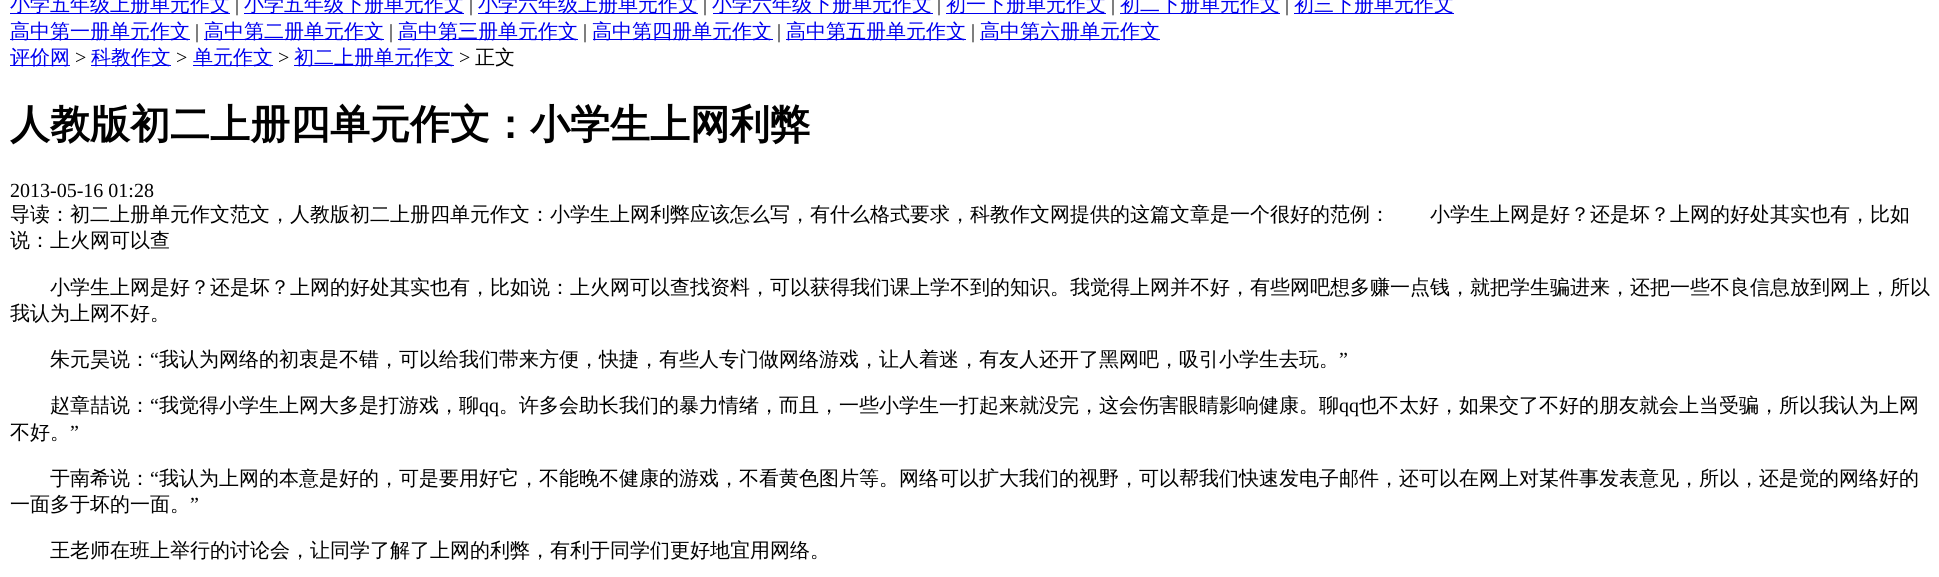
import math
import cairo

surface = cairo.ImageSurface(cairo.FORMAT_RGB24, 1939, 577)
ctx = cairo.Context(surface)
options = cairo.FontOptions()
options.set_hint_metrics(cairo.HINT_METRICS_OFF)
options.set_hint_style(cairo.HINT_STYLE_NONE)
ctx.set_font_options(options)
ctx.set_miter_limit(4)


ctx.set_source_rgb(1, 1, 1)
ctx.paint()
ctx.set_source_rgb(0, 0, 0.933)
ctx.rectangle(10, 13, 220, 1)
ctx.fill()
ctx.select_font_face("WenQuanYi Zen Hei Medium")
ctx.set_font_size(20)
ctx.move_to(10, 11)
ctx.show_text("小学五年级上册单元作文")
ctx.select_font_face("Liberation Serif")
ctx.set_source_rgb(0, 0, 0)
ctx.move_to(235, 11)
ctx.show_text("|")
ctx.set_source_rgb(0, 0, 0.933)
ctx.rectangle(244, 13, 220, 1)
ctx.fill()
ctx.select_font_face("WenQuanYi Zen Hei Medium")
ctx.move_to(244, 11)
ctx.show_text("小学五年级下册单元作文")
ctx.select_font_face("Liberation Serif")
ctx.set_source_rgb(0, 0, 0)
ctx.move_to(469, 11)
ctx.show_text("|")
ctx.set_source_rgb(0, 0, 0.933)
ctx.rectangle(478, 13, 220, 1)
ctx.fill()
ctx.select_font_face("WenQuanYi Zen Hei Medium")
ctx.move_to(478, 11)
ctx.show_text("小学六年级上册单元作文")
ctx.select_font_face("Liberation Serif")
ctx.set_source_rgb(0, 0, 0)
ctx.move_to(703, 11)
ctx.show_text("|")
ctx.set_source_rgb(0, 0, 0.933)
ctx.rectangle(713, 13, 220, 1)
ctx.fill()
ctx.select_font_face("WenQuanYi Zen Hei Medium")
ctx.move_to(712, 11)
ctx.show_text("小学六年级下册单元作文")
ctx.select_font_face("Liberation Serif")
ctx.set_source_rgb(0, 0, 0)
ctx.move_to(937, 11)
ctx.show_text("|")
ctx.set_source_rgb(0, 0, 0.933)
ctx.rectangle(946, 13, 160, 1)
ctx.fill()
ctx.select_font_face("WenQuanYi Zen Hei Medium")
ctx.move_to(946, 11)
ctx.show_text("初一下册单元作文")
ctx.select_font_face("Liberation Serif")
ctx.set_source_rgb(0, 0, 0)
ctx.move_to(1111, 11)
ctx.show_text("|")
ctx.set_source_rgb(0, 0, 0.933)
ctx.rectangle(1120, 13, 160, 1)
ctx.fill()
ctx.select_font_face("WenQuanYi Zen Hei Medium")
ctx.move_to(1120, 11)
ctx.show_text("初二下册单元作文")
ctx.select_font_face("Liberation Serif")
ctx.set_source_rgb(0, 0, 0)
ctx.move_to(1285, 11)
ctx.show_text("|")
ctx.set_source_rgb(0, 0, 0.933)
ctx.rectangle(1294, 13, 160, 1)
ctx.fill()
ctx.select_font_face("WenQuanYi Zen Hei Medium")
ctx.move_to(1294, 11)
ctx.show_text("初三下册单元作文")
ctx.rectangle(10, 39, 180, 1)
ctx.fill()
ctx.move_to(10, 38)
ctx.show_text("高中第一册单元作文")
ctx.select_font_face("Liberation Serif")
ctx.set_source_rgb(0, 0, 0)
ctx.move_to(195, 38)
ctx.show_text("|")
ctx.set_source_rgb(0, 0, 0.933)
ctx.rectangle(204, 39, 180, 1)
ctx.fill()
ctx.select_font_face("WenQuanYi Zen Hei Medium")
ctx.move_to(204, 38)
ctx.show_text("高中第二册单元作文")
ctx.select_font_face("Liberation Serif")
ctx.set_source_rgb(0, 0, 0)
ctx.move_to(389, 38)
ctx.show_text("|")
ctx.set_source_rgb(0, 0, 0.933)
ctx.rectangle(398, 39, 180, 1)
ctx.fill()
ctx.select_font_face("WenQuanYi Zen Hei Medium")
ctx.move_to(398, 38)
ctx.show_text("高中第三册单元作文")
ctx.select_font_face("Liberation Serif")
ctx.set_source_rgb(0, 0, 0)
ctx.move_to(583, 38)
ctx.show_text("|")
ctx.set_source_rgb(0, 0, 0.933)
ctx.rectangle(593, 39, 180, 1)
ctx.fill()
ctx.select_font_face("WenQuanYi Zen Hei Medium")
ctx.move_to(592, 38)
ctx.show_text("高中第四册单元作文")
ctx.select_font_face("Liberation Serif")
ctx.set_source_rgb(0, 0, 0)
ctx.move_to(777, 38)
ctx.show_text("|")
ctx.set_source_rgb(0, 0, 0.933)
ctx.rectangle(786, 39, 180, 1)
ctx.fill()
ctx.select_font_face("WenQuanYi Zen Hei Medium")
ctx.move_to(786, 38)
ctx.show_text("高中第五册单元作文")
ctx.select_font_face("Liberation Serif")
ctx.set_source_rgb(0, 0, 0)
ctx.move_to(971, 38)
ctx.show_text("|")
ctx.set_source_rgb(0, 0, 0.933)
ctx.rectangle(980, 39, 180, 1)
ctx.fill()
ctx.select_font_face("WenQuanYi Zen Hei Medium")
ctx.move_to(980, 38)
ctx.show_text("高中第六册单元作文")
ctx.rectangle(10, 65, 60, 1)
ctx.fill()
ctx.move_to(10, 64)
ctx.show_text("评价网")
ctx.select_font_face("Liberation Serif")
ctx.set_source_rgb(0, 0, 0)
ctx.move_to(75, 64)
ctx.show_text(">")
ctx.set_source_rgb(0, 0, 0.933)
ctx.rectangle(91, 65, 80, 1)
ctx.fill()
ctx.select_font_face("WenQuanYi Zen Hei Medium")
ctx.move_to(91, 64)
ctx.show_text("科教作文")
ctx.select_font_face("Liberation Serif")
ctx.set_source_rgb(0, 0, 0)
ctx.move_to(176, 64)
ctx.show_text(">")
ctx.set_source_rgb(0, 0, 0.933)
ctx.rectangle(193, 65, 80, 1)
ctx.fill()
ctx.select_font_face("WenQuanYi Zen Hei Medium")
ctx.move_to(193, 64)
ctx.show_text("单元作文")
ctx.select_font_face("Liberation Serif")
ctx.set_source_rgb(0, 0, 0)
ctx.move_to(278, 64)
ctx.show_text(">")
ctx.set_source_rgb(0, 0, 0.933)
ctx.rectangle(294, 65, 160, 1)
ctx.fill()
ctx.select_font_face("WenQuanYi Zen Hei Medium")
ctx.move_to(294, 64)
ctx.show_text("初二上册单元作文")
ctx.select_font_face("Liberation Serif")
ctx.set_source_rgb(0, 0, 0)
ctx.move_to(459, 64)
ctx.show_text(">")
ctx.select_font_face("WenQuanYi Zen Hei Medium")
ctx.move_to(475, 64)
ctx.show_text("正文")
ctx.select_font_face("WenQuanYi Zen Hei", cairo.FONT_SLANT_NORMAL, cairo.FONT_WEIGHT_BOLD)
ctx.set_font_size(40)
ctx.move_to(10, 138)
ctx.show_text("人教版初二上册四单元作文：小学生上网利弊")
ctx.select_font_face("Liberation Serif")
ctx.set_font_size(20)
ctx.move_to(10, 197)
ctx.show_text("2013-05-16 01:28")
ctx.select_font_face("WenQuanYi Zen Hei Medium")
ctx.move_to(10, 221)
ctx.show_text("导读：初二上册单元作文范文，人教版初二上册四单元作文：小学生上网利弊应该怎么写，有什么格式要求，科教作文网提供的这篇文章是一个很好的范例：　　小学生上网是好？还是坏？上网的好处其实也有，比如")
ctx.move_to(10, 247)
ctx.show_text("说：上火网可以查")
ctx.move_to(50, 294)
ctx.show_text("小学生上网是好？还是坏？上网的好处其实也有，比如说：上火网可以查找资料，可以获得我们课上学不到的知识。我觉得上网并不好，有些网吧想多赚一点钱，就把学生骗进来，还把一些不良信息放到网上，所以")
ctx.move_to(10, 320)
ctx.show_text("我认为上网不好。")
ctx.move_to(50, 366)
ctx.show_text("朱元昊说：")
ctx.select_font_face("Liberation Serif")
ctx.move_to(150, 366)
ctx.show_text("“")
ctx.select_font_face("WenQuanYi Zen Hei Medium")
ctx.move_to(159, 366)
ctx.show_text("我认为网络的初衷是不错，可以给我们带来方便，快捷，有些人专门做网络游戏，让人着迷，有友人还开了黑网吧，吸引小学生去玩。")
ctx.select_font_face("Liberation Serif")
ctx.move_to(1339, 366)
ctx.show_text("”")
ctx.select_font_face("WenQuanYi Zen Hei Medium")
ctx.move_to(50, 412)
ctx.show_text("赵章喆说：")
ctx.select_font_face("Liberation Serif")
ctx.move_to(150, 412)
ctx.show_text("“")
ctx.select_font_face("WenQuanYi Zen Hei Medium")
ctx.move_to(159, 412)
ctx.show_text("我觉得小学生上网大多是打游戏，聊")
ctx.move_to(499, 412)
ctx.show_text("。许多会助长我们的暴力情绪，而且，一些小学生一打起来就没完，这会伤害眼睛影响健康。聊")
ctx.move_to(1359, 412)
ctx.show_text("也不太好，如果交了不好的朋友就会上当受骗，所以我认为上网")
ctx.select_font_face("Liberation Serif")
ctx.move_to(479, 412)
ctx.show_text("qq")
ctx.move_to(1339, 412)
ctx.show_text("qq")
ctx.select_font_face("WenQuanYi Zen Hei Medium")
ctx.move_to(10, 439)
ctx.show_text("不好。")
ctx.select_font_face("Liberation Serif")
ctx.move_to(70, 439)
ctx.show_text("”")
ctx.select_font_face("WenQuanYi Zen Hei Medium")
ctx.move_to(50, 485)
ctx.show_text("于南希说：")
ctx.select_font_face("Liberation Serif")
ctx.move_to(150, 485)
ctx.show_text("“")
ctx.select_font_face("WenQuanYi Zen Hei Medium")
ctx.move_to(159, 485)
ctx.show_text("我认为上网的本意是好的，可是要用好它，不能晚不健康的游戏，不看黄色图片等。网络可以扩大我们的视野，可以帮我们快速发电子邮件，还可以在网上对某件事发表意见，所以，还是觉的网络好的")
ctx.move_to(10, 511)
ctx.show_text("一面多于坏的一面。")
ctx.select_font_face("Liberation Serif")
ctx.move_to(190, 511)
ctx.show_text("”")
ctx.select_font_face("WenQuanYi Zen Hei Medium")
ctx.move_to(50, 557)
ctx.show_text("王老师在班上举行的讨论会，让同学了解了上网的利弊，有利于同学们更好地宜用网络。")
surface.write_to_png("page.png")
